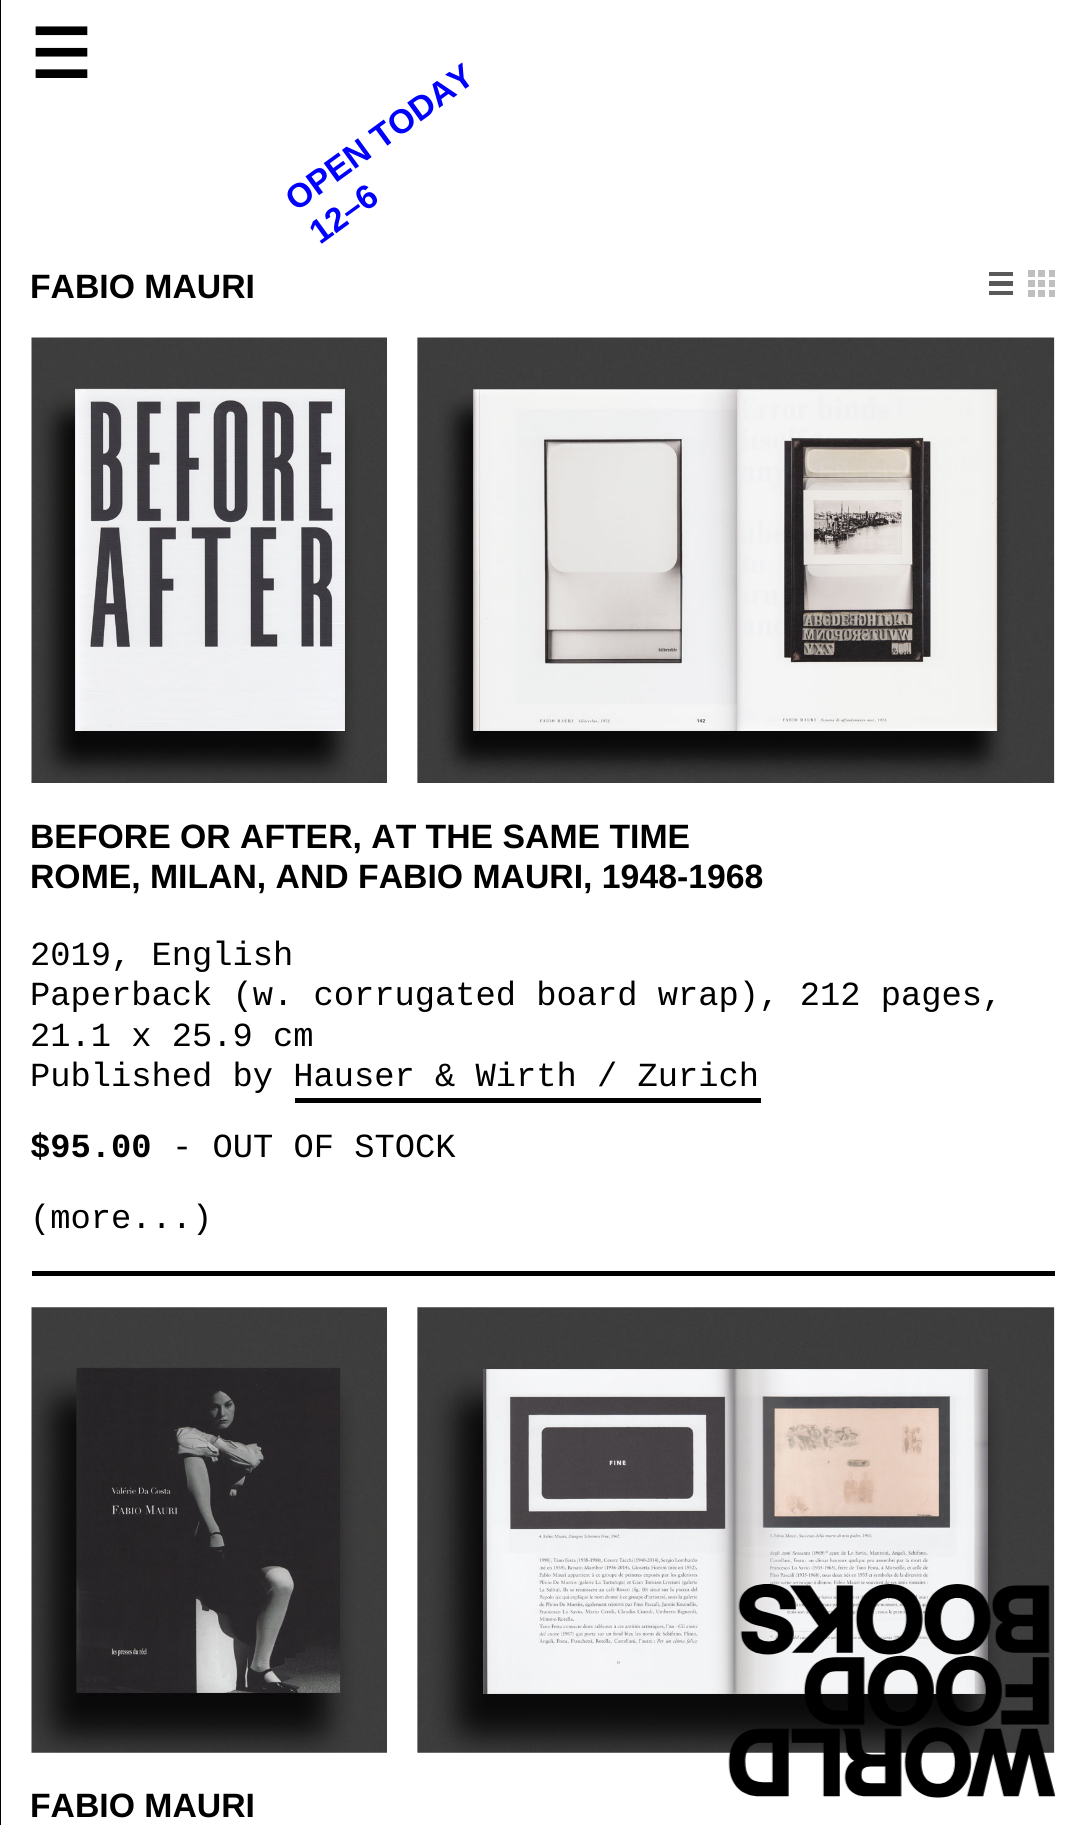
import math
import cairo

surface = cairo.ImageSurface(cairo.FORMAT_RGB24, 1084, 1825)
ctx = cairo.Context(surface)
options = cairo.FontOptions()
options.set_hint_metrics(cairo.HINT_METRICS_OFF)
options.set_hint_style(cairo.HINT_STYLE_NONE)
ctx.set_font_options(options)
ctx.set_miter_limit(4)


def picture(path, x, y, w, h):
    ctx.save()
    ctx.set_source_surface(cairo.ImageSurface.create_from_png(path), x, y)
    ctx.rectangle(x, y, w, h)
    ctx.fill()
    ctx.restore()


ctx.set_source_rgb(1, 1, 1)
ctx.paint()
ctx.set_source_rgb(0, 0, 0)
ctx.rectangle(0, 0, 1, 1825)
ctx.fill()
ctx.select_font_face("DejaVu Sans", cairo.FONT_SLANT_NORMAL, cairo.FONT_WEIGHT_BOLD)
ctx.set_font_size(68)
ctx.move_to(30, 78)
ctx.show_text("☰")
ctx.select_font_face("Liberation Sans", cairo.FONT_SLANT_NORMAL, cairo.FONT_WEIGHT_BOLD)
ctx.set_font_size(33.75)
ctx.set_source_rgb(0, 0, 1)
ctx.save()
ctx.translate(296, 212)
ctx.rotate(-36 * math.pi / 180)
ctx.move_to(0, 0)
ctx.show_text("OPEN TODAY")
ctx.restore()
ctx.save()
ctx.translate(320, 245)
ctx.rotate(-36 * math.pi / 180)
ctx.move_to(0, 0)
ctx.show_text("12–6")
ctx.restore()
ctx.set_source_rgb(0, 0, 0)
ctx.move_to(30, 298)
ctx.show_text("FABIO MAURI")
ctx.set_source_rgb(0.349, 0.349, 0.349)
ctx.rectangle(989, 272, 24, 4)
ctx.fill()
ctx.rectangle(989, 281, 24, 5)
ctx.fill()
ctx.rectangle(989, 291, 24, 4)
ctx.fill()
picture("img1.png", 1028, 270, 27, 27)
picture("img2.png", 31, 337, 356, 446)
picture("img3.png", 417, 337, 638, 446)
ctx.set_source_rgb(0, 0, 0)
ctx.move_to(30, 848)
ctx.show_text("BEFORE OR AFTER, AT THE SAME TIME")
ctx.move_to(30, 888)
ctx.show_text("ROME, MILAN, AND FABIO MAURI, 1948-1968")
ctx.select_font_face("Liberation Mono")
ctx.move_to(30, 965)
ctx.show_text("2019, English")
ctx.move_to(30, 1005)
ctx.show_text("Paperback (w. corrugated board wrap), 212 pages,")
ctx.move_to(30, 1046)
ctx.show_text("21.1 x 25.9 cm")
ctx.move_to(30, 1086)
ctx.show_text("Published by Hauser & Wirth / Zurich")
ctx.rectangle(295, 1098, 466, 5)
ctx.fill()
ctx.select_font_face("Liberation Mono", cairo.FONT_SLANT_NORMAL, cairo.FONT_WEIGHT_BOLD)
ctx.move_to(30, 1157)
ctx.show_text("$95.00")
ctx.select_font_face("Liberation Mono")
ctx.move_to(172, 1157)
ctx.show_text("- OUT OF STOCK")
ctx.move_to(30, 1228)
ctx.show_text("(more...)")
ctx.rectangle(32, 1271, 1023, 5)
ctx.fill()
picture("img4.png", 31, 1307, 356, 446)
picture("img5.png", 417, 1307, 638, 446)
ctx.select_font_face("Liberation Sans", cairo.FONT_SLANT_NORMAL, cairo.FONT_WEIGHT_BOLD)
ctx.move_to(30, 1817)
ctx.show_text("FABIO MAURI")
picture("img6.png", 728, 1584, 328, 214)
surface.write_to_png("page.png")
